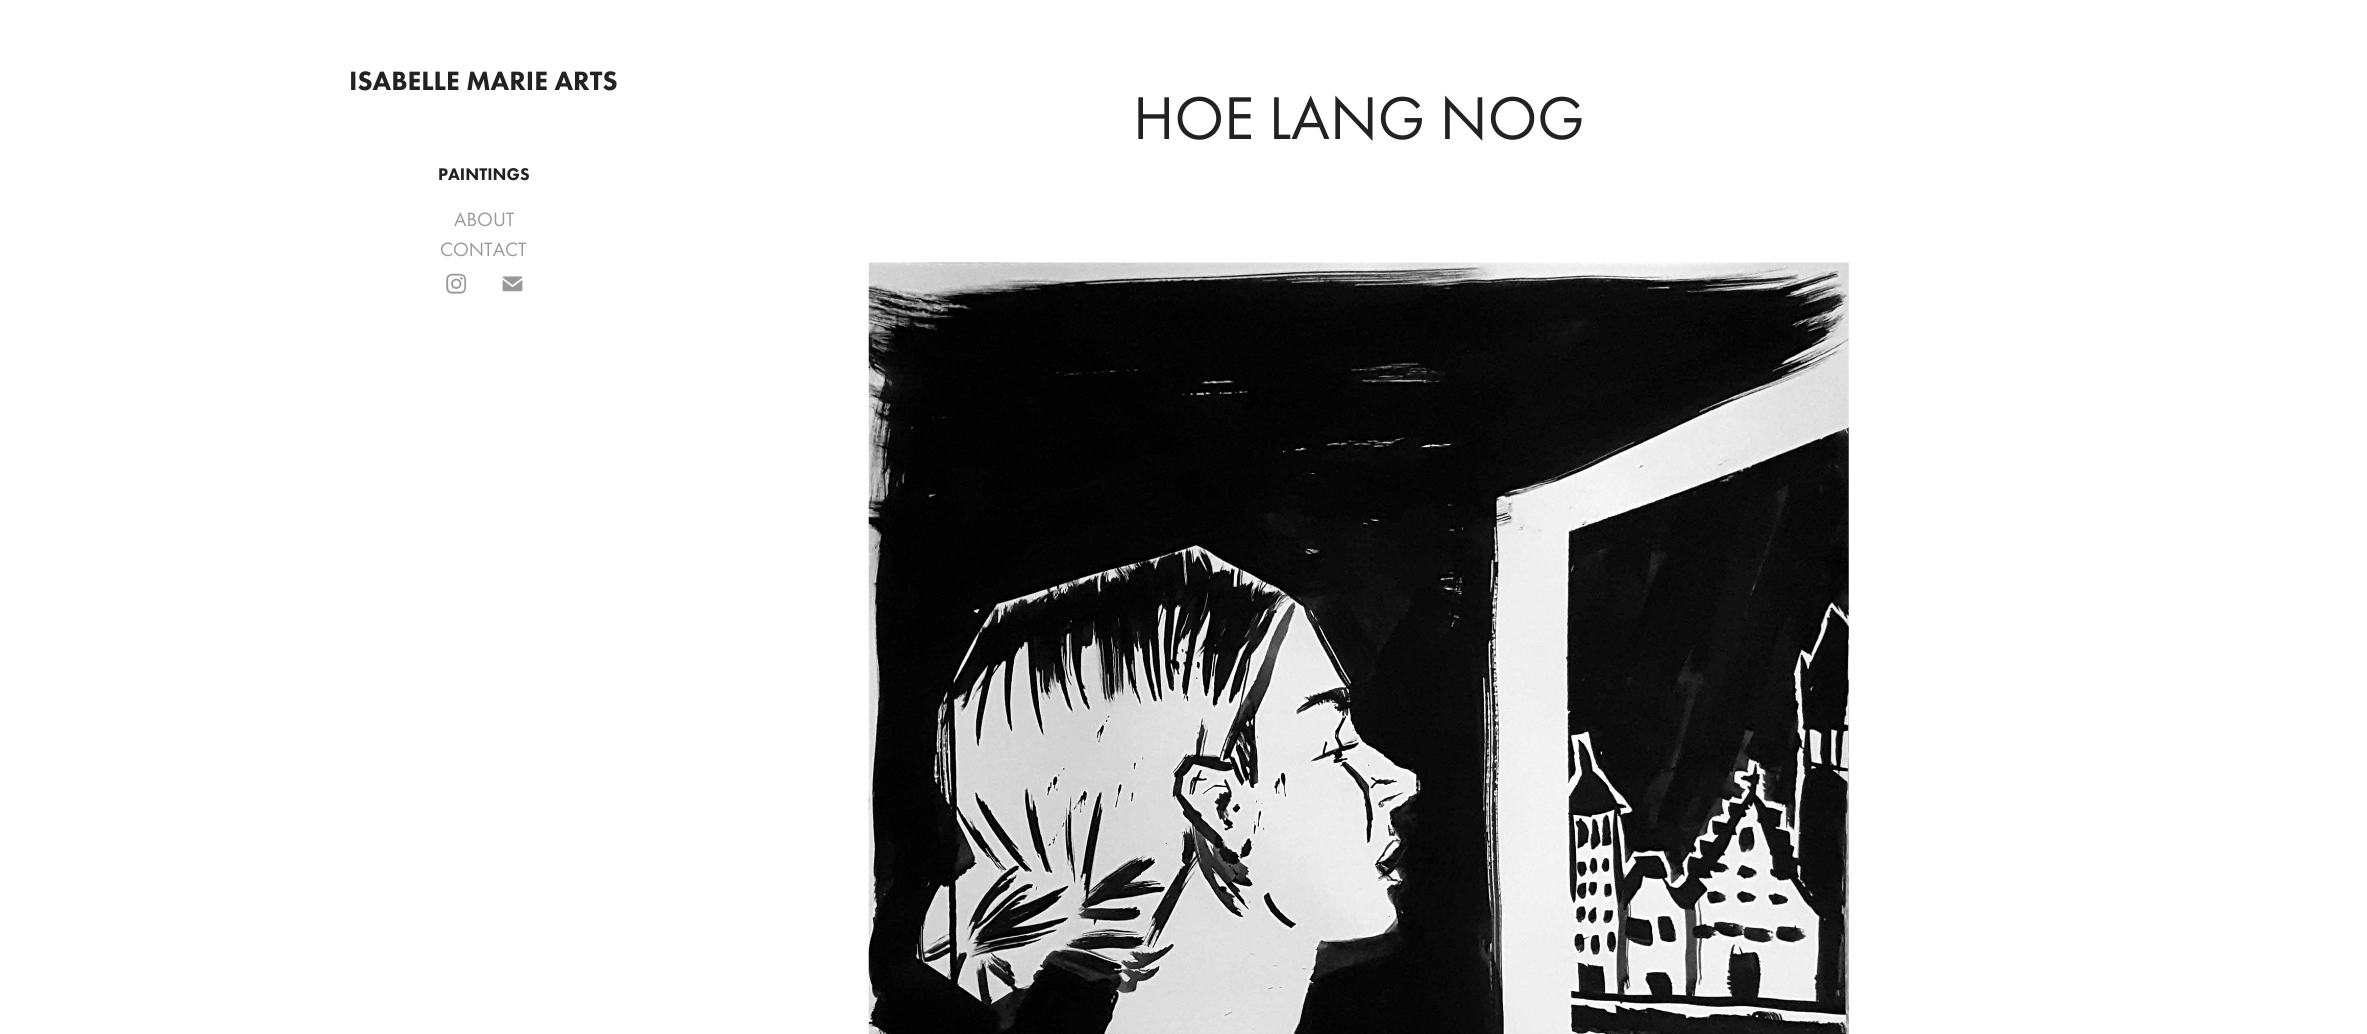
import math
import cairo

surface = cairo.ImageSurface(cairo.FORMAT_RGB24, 2367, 1034)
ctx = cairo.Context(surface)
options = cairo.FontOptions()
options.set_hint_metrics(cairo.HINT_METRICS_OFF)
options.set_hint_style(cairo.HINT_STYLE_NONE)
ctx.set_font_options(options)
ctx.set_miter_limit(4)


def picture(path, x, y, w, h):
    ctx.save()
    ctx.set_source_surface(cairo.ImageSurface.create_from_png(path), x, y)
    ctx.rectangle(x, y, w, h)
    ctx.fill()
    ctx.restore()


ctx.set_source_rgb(1, 1, 1)
ctx.paint()
ctx.select_font_face("Futura PT Black")
ctx.set_font_size(27.5)
ctx.set_source_rgb(0.133, 0.133, 0.133)
ctx.move_to(349, 90)
ctx.show_text("ISABELLE MARIE ARTS")
ctx.set_font_size(17.5)
ctx.move_to(438, 180)
ctx.show_text("PAINTINGS")
ctx.select_font_face("Futura PT")
ctx.set_font_size(20)
ctx.set_source_rgb(0.6, 0.6, 0.6)
ctx.move_to(454, 226)
ctx.show_text("ABOUT")
ctx.move_to(440, 256)
ctx.show_text("CONTACT")
picture("img1.png", 446, 273, 20, 21)
picture("img2.png", 502, 276, 21, 16)
ctx.set_font_size(62.5)
ctx.set_source_rgb(0.133, 0.133, 0.133)
ctx.move_to(1133, 139)
ctx.show_text("HOE LANG NOG")
picture("img3.png", 868, 262, 981, 772)
surface.write_to_png("page.png")
